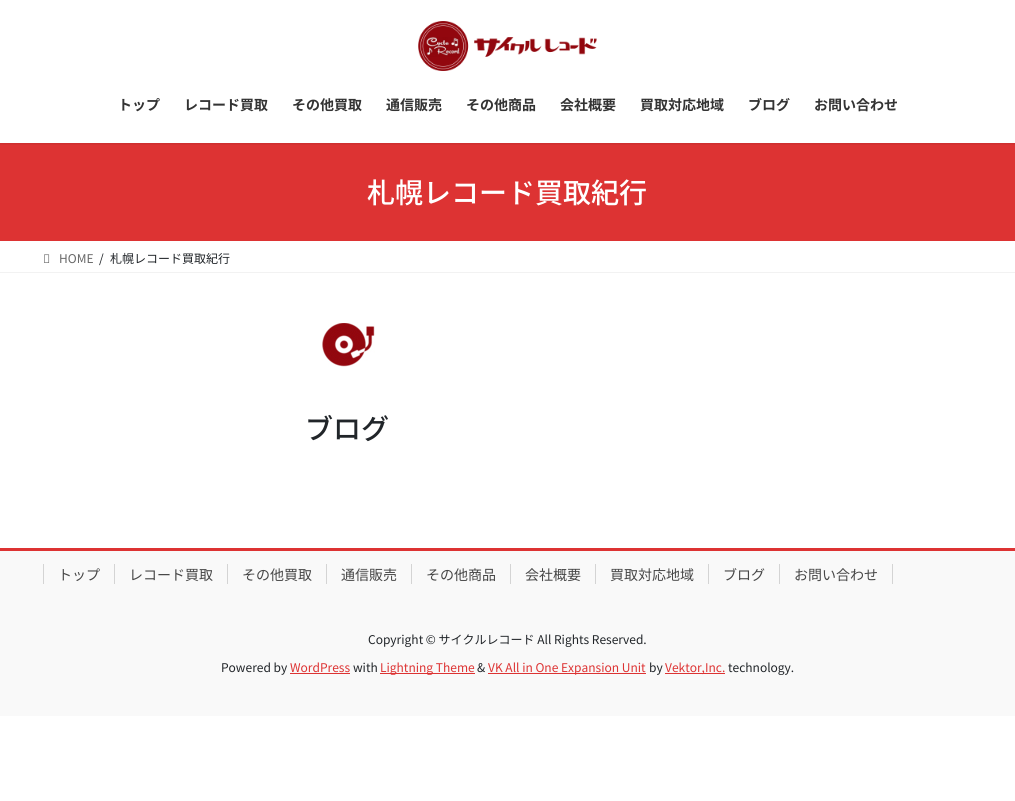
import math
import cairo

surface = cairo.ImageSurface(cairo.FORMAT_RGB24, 1015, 801)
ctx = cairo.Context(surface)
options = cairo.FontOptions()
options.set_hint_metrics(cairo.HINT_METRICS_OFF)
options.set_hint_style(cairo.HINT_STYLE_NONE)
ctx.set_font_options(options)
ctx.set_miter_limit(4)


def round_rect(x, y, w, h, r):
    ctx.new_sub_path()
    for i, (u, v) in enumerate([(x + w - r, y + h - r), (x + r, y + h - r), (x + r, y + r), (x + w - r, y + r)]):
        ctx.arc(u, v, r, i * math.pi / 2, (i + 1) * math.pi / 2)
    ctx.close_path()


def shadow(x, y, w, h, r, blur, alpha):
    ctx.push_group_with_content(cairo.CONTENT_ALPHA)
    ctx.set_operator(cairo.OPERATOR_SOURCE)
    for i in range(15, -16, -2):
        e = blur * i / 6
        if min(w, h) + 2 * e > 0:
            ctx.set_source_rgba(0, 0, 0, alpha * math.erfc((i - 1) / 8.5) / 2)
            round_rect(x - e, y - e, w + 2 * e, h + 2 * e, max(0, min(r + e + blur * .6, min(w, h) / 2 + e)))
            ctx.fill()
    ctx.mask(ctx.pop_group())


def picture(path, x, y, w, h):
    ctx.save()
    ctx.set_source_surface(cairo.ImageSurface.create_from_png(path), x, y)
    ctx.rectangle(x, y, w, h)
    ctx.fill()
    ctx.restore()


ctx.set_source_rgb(1, 1, 1)
ctx.paint()
ctx.set_source_rgb(0.867, 0.2, 0.2)
ctx.rectangle(0, 143, 1015, 98)
ctx.fill()
ctx.save()
ctx.rectangle(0, 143, 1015, 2)
ctx.clip()
ctx.set_source_rgb(0, 0, 0)
shadow(0, 1, 1015, 143, 0, 1.5, 0.1)
ctx.restore()
picture("img1.png", 418, 21, 179, 50)
ctx.select_font_face("Noto Sans JP", cairo.FONT_SLANT_NORMAL, cairo.FONT_WEIGHT_BOLD)
ctx.set_font_size(14)
ctx.set_source_rgb(0.2, 0.2, 0.2)
ctx.move_to(118, 110)
ctx.show_text("トップ")
ctx.move_to(184, 110)
ctx.show_text("レコード買取")
ctx.move_to(292, 110)
ctx.show_text("その他買取")
ctx.move_to(386, 110)
ctx.show_text("通信販売")
ctx.move_to(466, 110)
ctx.show_text("その他商品")
ctx.move_to(560, 110)
ctx.show_text("会社概要")
ctx.move_to(640, 110)
ctx.show_text("買取対応地域")
ctx.move_to(748, 110)
ctx.show_text("ブログ")
ctx.move_to(814, 110)
ctx.show_text("お問い合わせ")
ctx.select_font_face("Noto Sans JP Medium")
ctx.set_font_size(28)
ctx.set_source_rgb(1, 1, 1)
ctx.move_to(367, 203)
ctx.show_text("札幌レコード買取紀行")
ctx.set_source_rgb(0.949, 0.949, 0.949)
ctx.rectangle(0, 272, 1015, 1)
ctx.fill()
picture("img2.png", 44, 254, 6, 9)
ctx.select_font_face("Noto Sans JP")
ctx.set_font_size(12)
ctx.set_source_rgb(0.4, 0.4, 0.4)
ctx.move_to(59, 263)
ctx.show_text("HOME")
ctx.set_source_rgb(0.129, 0.145, 0.161)
ctx.move_to(99, 263)
ctx.show_text("/")
ctx.move_to(110, 263)
ctx.show_text("札幌レコード買取紀行")
picture("img3.png", 322, 322, 53, 45)
ctx.select_font_face("Noto Sans JP Medium")
ctx.set_font_size(28)
ctx.move_to(305, 439)
ctx.show_text("ブログ")
ctx.set_source_rgb(0.976, 0.976, 0.976)
ctx.rectangle(0, 551, 1015, 165)
ctx.fill()
ctx.set_source_rgb(0.867, 0.2, 0.2)
ctx.rectangle(0, 548, 1015, 3)
ctx.fill()
ctx.select_font_face("Noto Sans JP")
ctx.set_font_size(14)
ctx.set_source_rgb(0.275, 0.275, 0.275)
ctx.move_to(58, 580)
ctx.show_text("トップ")
ctx.set_source_rgb(0.831, 0.831, 0.831)
ctx.rectangle(43, 564, 1, 20)
ctx.fill()
ctx.set_source_rgb(0.275, 0.275, 0.275)
ctx.move_to(129, 580)
ctx.show_text("レコード買取")
ctx.set_source_rgb(0.831, 0.831, 0.831)
ctx.rectangle(114, 564, 1, 20)
ctx.fill()
ctx.set_source_rgb(0.275, 0.275, 0.275)
ctx.move_to(242, 580)
ctx.show_text("その他買取")
ctx.set_source_rgb(0.831, 0.831, 0.831)
ctx.rectangle(227, 564, 1, 20)
ctx.fill()
ctx.set_source_rgb(0.275, 0.275, 0.275)
ctx.move_to(341, 580)
ctx.show_text("通信販売")
ctx.set_source_rgb(0.831, 0.831, 0.831)
ctx.rectangle(326, 564, 1, 20)
ctx.fill()
ctx.set_source_rgb(0.275, 0.275, 0.275)
ctx.move_to(426, 580)
ctx.show_text("その他商品")
ctx.set_source_rgb(0.831, 0.831, 0.831)
ctx.rectangle(411, 564, 1, 20)
ctx.fill()
ctx.set_source_rgb(0.275, 0.275, 0.275)
ctx.move_to(525, 580)
ctx.show_text("会社概要")
ctx.set_source_rgb(0.831, 0.831, 0.831)
ctx.rectangle(510, 564, 1, 20)
ctx.fill()
ctx.set_source_rgb(0.275, 0.275, 0.275)
ctx.move_to(610, 580)
ctx.show_text("買取対応地域")
ctx.set_source_rgb(0.831, 0.831, 0.831)
ctx.rectangle(595, 564, 1, 20)
ctx.fill()
ctx.set_source_rgb(0.275, 0.275, 0.275)
ctx.move_to(723, 580)
ctx.show_text("ブログ")
ctx.set_source_rgb(0.831, 0.831, 0.831)
ctx.rectangle(708, 564, 1, 20)
ctx.fill()
ctx.set_source_rgb(0.275, 0.275, 0.275)
ctx.move_to(794, 580)
ctx.show_text("お問い合わせ")
ctx.set_source_rgb(0.831, 0.831, 0.831)
ctx.rectangle(892, 564, 1, 20)
ctx.fill()
ctx.rectangle(779, 564, 1, 20)
ctx.fill()
ctx.set_font_size(12)
ctx.set_source_rgb(0.129, 0.145, 0.161)
ctx.move_to(368, 644)
ctx.show_text("Copyright © サイクルレコード All Rights Reserved.")
ctx.move_to(221, 672)
ctx.show_text("Powered by")
ctx.set_source_rgb(0.867, 0.2, 0.2)
ctx.move_to(290, 672)
ctx.show_text("WordPress")
ctx.rectangle(290, 673, 60, 1)
ctx.fill()
ctx.set_source_rgb(0.129, 0.145, 0.161)
ctx.move_to(353, 672)
ctx.show_text("with")
ctx.set_source_rgb(0.867, 0.2, 0.2)
ctx.rectangle(380, 673, 95, 1)
ctx.fill()
ctx.move_to(380, 672)
ctx.show_text("Lightning Theme")
ctx.set_source_rgb(0.129, 0.145, 0.161)
ctx.move_to(477, 672)
ctx.show_text("&")
ctx.set_source_rgb(0.867, 0.2, 0.2)
ctx.rectangle(488, 673, 158, 1)
ctx.fill()
ctx.move_to(488, 672)
ctx.show_text("VK All in One Expansion Unit")
ctx.set_source_rgb(0.129, 0.145, 0.161)
ctx.move_to(649, 672)
ctx.show_text("by")
ctx.set_source_rgb(0.867, 0.2, 0.2)
ctx.rectangle(665, 673, 60, 1)
ctx.fill()
ctx.move_to(665, 672)
ctx.show_text("Vektor,Inc.")
ctx.set_source_rgb(0.129, 0.145, 0.161)
ctx.move_to(728, 672)
ctx.show_text("technology.")
surface.write_to_png("page.png")
